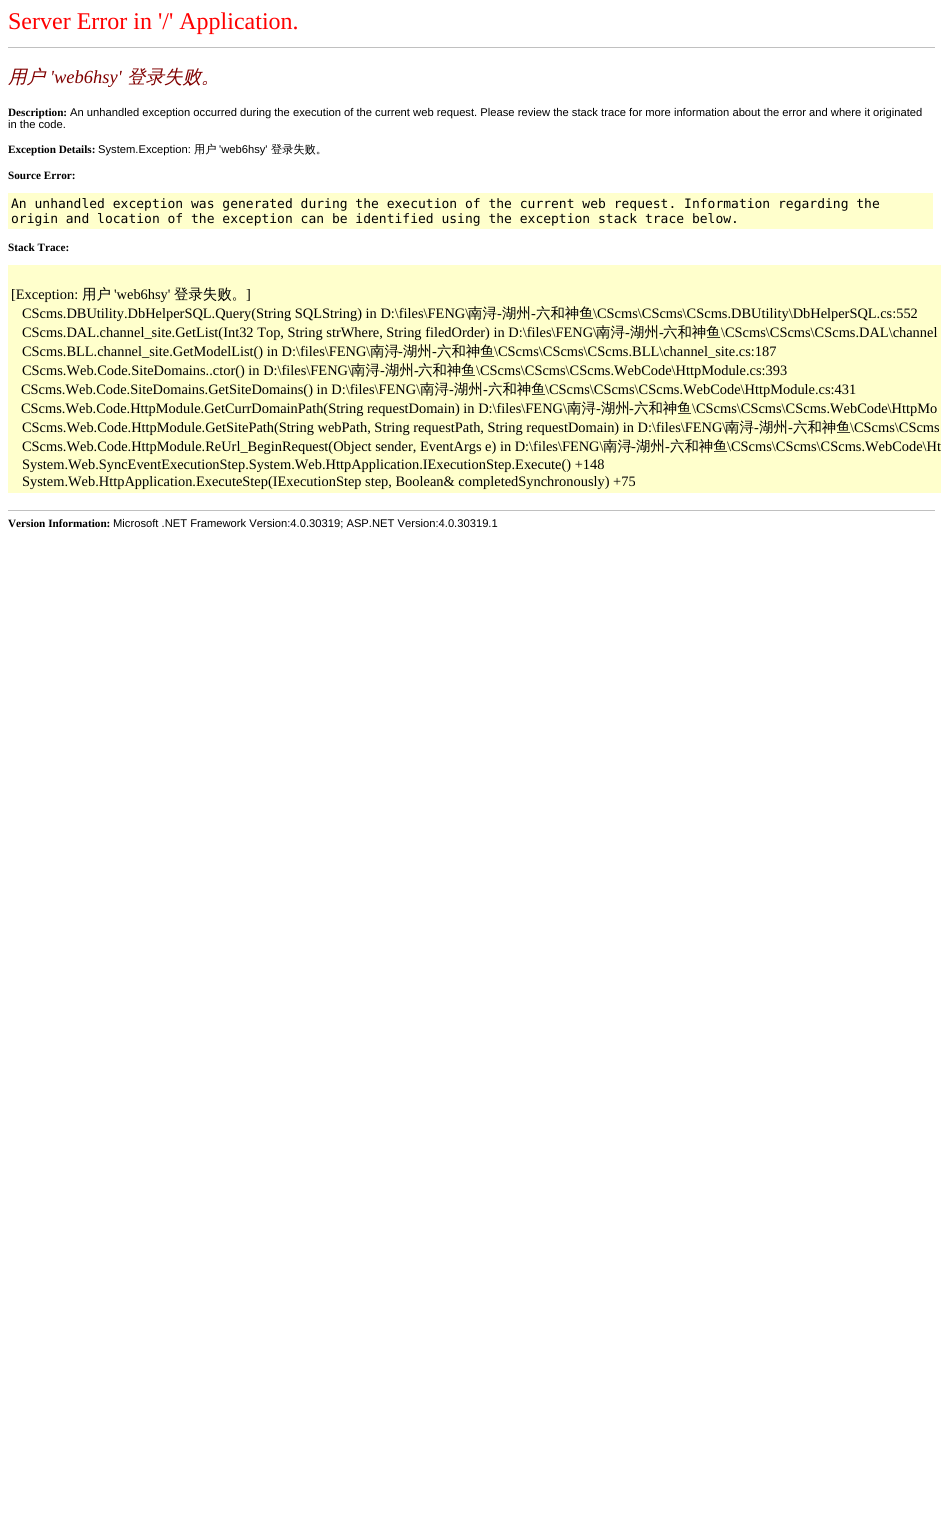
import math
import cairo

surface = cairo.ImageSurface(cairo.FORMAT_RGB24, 941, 1514)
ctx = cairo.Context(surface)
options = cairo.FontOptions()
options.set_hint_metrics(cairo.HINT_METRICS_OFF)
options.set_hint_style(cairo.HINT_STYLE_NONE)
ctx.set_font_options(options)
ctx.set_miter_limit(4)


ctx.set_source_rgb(1, 1, 1)
ctx.paint()
ctx.select_font_face("Liberation Serif")
ctx.set_font_size(24)
ctx.set_source_rgb(1, 0, 0)
ctx.move_to(8, 29)
ctx.show_text("Server Error in '/' Application.")
ctx.set_source_rgb(0.753, 0.753, 0.753)
ctx.rectangle(8, 47, 927, 1)
ctx.fill()
ctx.select_font_face("WenQuanYi Zen Hei Medium", cairo.FONT_SLANT_ITALIC)
ctx.set_font_size(18.5)
ctx.set_source_rgb(0.502, 0, 0)
ctx.move_to(8, 83)
ctx.show_text("用户")
ctx.select_font_face("Liberation Serif", cairo.FONT_SLANT_ITALIC)
ctx.move_to(50, 83)
ctx.show_text("'web6hsy'")
ctx.select_font_face("WenQuanYi Zen Hei Medium", cairo.FONT_SLANT_ITALIC)
ctx.move_to(127, 83)
ctx.show_text("登录失败。")
ctx.select_font_face("Liberation Serif", cairo.FONT_SLANT_NORMAL, cairo.FONT_WEIGHT_BOLD)
ctx.set_font_size(11.2)
ctx.set_source_rgb(0, 0, 0)
ctx.move_to(8, 116)
ctx.show_text("Description:")
ctx.select_font_face("Liberation Sans")
ctx.move_to(70, 116)
ctx.show_text("An unhandled exception occurred during the execution of the current web request. Please review the stack trace for more information about the error and where it originated")
ctx.move_to(8, 128)
ctx.show_text("in the code.")
ctx.select_font_face("Liberation Serif", cairo.FONT_SLANT_NORMAL, cairo.FONT_WEIGHT_BOLD)
ctx.move_to(8, 153)
ctx.show_text("Exception Details:")
ctx.select_font_face("Liberation Sans")
ctx.move_to(98, 153)
ctx.show_text("System.Exception:")
ctx.select_font_face("WenQuanYi Zen Hei Medium")
ctx.move_to(194, 153)
ctx.show_text("用户")
ctx.select_font_face("Liberation Sans")
ctx.move_to(219, 153)
ctx.show_text("'web6hsy'")
ctx.select_font_face("WenQuanYi Zen Hei Medium")
ctx.move_to(271, 153)
ctx.show_text("登录失败。")
ctx.select_font_face("Liberation Serif", cairo.FONT_SLANT_NORMAL, cairo.FONT_WEIGHT_BOLD)
ctx.move_to(8, 179)
ctx.show_text("Source Error:")
ctx.set_source_rgb(1, 1, 0.8)
ctx.rectangle(8, 193, 925, 36)
ctx.fill()
ctx.select_font_face("DejaVu Sans Mono")
ctx.set_font_size(13)
ctx.set_source_rgb(0, 0, 0)
ctx.move_to(11, 208)
ctx.show_text("An unhandled exception was generated during the execution of the current web request. Information regarding the")
ctx.move_to(11, 223)
ctx.show_text("origin and location of the exception can be identified using the exception stack trace below.")
ctx.select_font_face("Liberation Serif", cairo.FONT_SLANT_NORMAL, cairo.FONT_WEIGHT_BOLD)
ctx.set_font_size(11.2)
ctx.move_to(8, 251)
ctx.show_text("Stack Trace:")
ctx.set_source_rgb(1, 1, 0.8)
ctx.rectangle(8, 265, 933, 228)
ctx.fill()
ctx.select_font_face("Liberation Serif")
ctx.set_font_size(14.4)
ctx.set_source_rgb(0, 0, 0)
ctx.move_to(11, 299)
ctx.show_text("[Exception:")
ctx.select_font_face("WenQuanYi Zen Hei Medium")
ctx.move_to(82, 299)
ctx.show_text("用户")
ctx.select_font_face("Liberation Serif")
ctx.move_to(114, 299)
ctx.show_text("'web6hsy'")
ctx.select_font_face("WenQuanYi Zen Hei Medium")
ctx.move_to(174, 299)
ctx.show_text("登录失败。")
ctx.select_font_face("Liberation Serif")
ctx.move_to(246, 299)
ctx.show_text("]")
ctx.move_to(22, 318)
ctx.show_text("CScms.DBUtility.DbHelperSQL.Query(String SQLString) in D:\\files\\FENG\\")
ctx.select_font_face("WenQuanYi Zen Hei Medium")
ctx.move_to(468, 318)
ctx.show_text("南浔")
ctx.select_font_face("Liberation Serif")
ctx.move_to(497, 318)
ctx.show_text("-")
ctx.select_font_face("WenQuanYi Zen Hei Medium")
ctx.move_to(502, 318)
ctx.show_text("湖州")
ctx.select_font_face("Liberation Serif")
ctx.move_to(531, 318)
ctx.show_text("-")
ctx.select_font_face("WenQuanYi Zen Hei Medium")
ctx.move_to(536, 318)
ctx.show_text("六和神鱼")
ctx.select_font_face("Liberation Serif")
ctx.move_to(593, 318)
ctx.show_text("\\CScms\\CScms\\CScms.DBUtility\\DbHelperSQL.cs:552")
ctx.move_to(22, 337)
ctx.show_text("CScms.DAL.channel_site.GetList(Int32 Top, String strWhere, String filedOrder) in D:\\files\\FENG\\")
ctx.select_font_face("WenQuanYi Zen Hei Medium")
ctx.move_to(596, 337)
ctx.show_text("南浔")
ctx.select_font_face("Liberation Serif")
ctx.move_to(625, 337)
ctx.show_text("-")
ctx.select_font_face("WenQuanYi Zen Hei Medium")
ctx.move_to(630, 337)
ctx.show_text("湖州")
ctx.select_font_face("Liberation Serif")
ctx.move_to(659, 337)
ctx.show_text("-")
ctx.select_font_face("WenQuanYi Zen Hei Medium")
ctx.move_to(663, 337)
ctx.show_text("六和神鱼")
ctx.select_font_face("Liberation Serif")
ctx.move_to(721, 337)
ctx.show_text("\\CScms\\CScms\\CScms.DAL\\channel")
ctx.move_to(22, 356)
ctx.show_text("CScms.BLL.channel_site.GetModelList() in D:\\files\\FENG\\")
ctx.select_font_face("WenQuanYi Zen Hei Medium")
ctx.move_to(370, 356)
ctx.show_text("南浔")
ctx.select_font_face("Liberation Serif")
ctx.move_to(398, 356)
ctx.show_text("-")
ctx.select_font_face("WenQuanYi Zen Hei Medium")
ctx.move_to(403, 356)
ctx.show_text("湖州")
ctx.select_font_face("Liberation Serif")
ctx.move_to(432, 356)
ctx.show_text("-")
ctx.select_font_face("WenQuanYi Zen Hei Medium")
ctx.move_to(437, 356)
ctx.show_text("六和神鱼")
ctx.select_font_face("Liberation Serif")
ctx.move_to(494, 356)
ctx.show_text("\\CScms\\CScms\\CScms.BLL\\channel_site.cs:187")
ctx.move_to(22, 375)
ctx.show_text("CScms.Web.Code.SiteDomains..ctor() in D:\\files\\FENG\\")
ctx.select_font_face("WenQuanYi Zen Hei Medium")
ctx.move_to(351, 375)
ctx.show_text("南浔")
ctx.select_font_face("Liberation Serif")
ctx.move_to(380, 375)
ctx.show_text("-")
ctx.select_font_face("WenQuanYi Zen Hei Medium")
ctx.move_to(385, 375)
ctx.show_text("湖州")
ctx.select_font_face("Liberation Serif")
ctx.move_to(414, 375)
ctx.show_text("-")
ctx.select_font_face("WenQuanYi Zen Hei Medium")
ctx.move_to(418, 375)
ctx.show_text("六和神鱼")
ctx.select_font_face("Liberation Serif")
ctx.move_to(476, 375)
ctx.show_text("\\CScms\\CScms\\CScms.WebCode\\HttpModule.cs:393")
ctx.move_to(21, 394)
ctx.show_text("CScms.Web.Code.SiteDomains.GetSiteDomains() in D:\\files\\FENG\\")
ctx.select_font_face("WenQuanYi Zen Hei Medium")
ctx.move_to(420, 394)
ctx.show_text("南浔")
ctx.select_font_face("Liberation Serif")
ctx.move_to(449, 394)
ctx.show_text("-")
ctx.select_font_face("WenQuanYi Zen Hei Medium")
ctx.move_to(454, 394)
ctx.show_text("湖州")
ctx.select_font_face("Liberation Serif")
ctx.move_to(483, 394)
ctx.show_text("-")
ctx.select_font_face("WenQuanYi Zen Hei Medium")
ctx.move_to(488, 394)
ctx.show_text("六和神鱼")
ctx.select_font_face("Liberation Serif")
ctx.move_to(545, 394)
ctx.show_text("\\CScms\\CScms\\CScms.WebCode\\HttpModule.cs:431")
ctx.move_to(21, 413)
ctx.show_text("CScms.Web.Code.HttpModule.GetCurrDomainPath(String requestDomain) in D:\\files\\FENG\\")
ctx.select_font_face("WenQuanYi Zen Hei Medium")
ctx.move_to(567, 413)
ctx.show_text("南浔")
ctx.select_font_face("Liberation Serif")
ctx.move_to(596, 413)
ctx.show_text("-")
ctx.select_font_face("WenQuanYi Zen Hei Medium")
ctx.move_to(601, 413)
ctx.show_text("湖州")
ctx.select_font_face("Liberation Serif")
ctx.move_to(629, 413)
ctx.show_text("-")
ctx.select_font_face("WenQuanYi Zen Hei Medium")
ctx.move_to(634, 413)
ctx.show_text("六和神鱼")
ctx.select_font_face("Liberation Serif")
ctx.move_to(692, 413)
ctx.show_text("\\CScms\\CScms\\CScms.WebCode\\HttpMo")
ctx.move_to(22, 432)
ctx.show_text("CScms.Web.Code.HttpModule.GetSitePath(String webPath, String requestPath, String requestDomain) in D:\\files\\FENG\\")
ctx.select_font_face("WenQuanYi Zen Hei Medium")
ctx.move_to(725, 432)
ctx.show_text("南浔")
ctx.select_font_face("Liberation Serif")
ctx.move_to(754, 432)
ctx.show_text("-")
ctx.select_font_face("WenQuanYi Zen Hei Medium")
ctx.move_to(759, 432)
ctx.show_text("湖州")
ctx.select_font_face("Liberation Serif")
ctx.move_to(788, 432)
ctx.show_text("-")
ctx.select_font_face("WenQuanYi Zen Hei Medium")
ctx.move_to(793, 432)
ctx.show_text("六和神鱼")
ctx.select_font_face("Liberation Serif")
ctx.move_to(850, 432)
ctx.show_text("\\CScms\\CScms")
ctx.move_to(22, 451)
ctx.show_text("CScms.Web.Code.HttpModule.ReUrl_BeginRequest(Object sender, EventArgs e) in D:\\files\\FENG\\")
ctx.select_font_face("WenQuanYi Zen Hei Medium")
ctx.move_to(603, 451)
ctx.show_text("南浔")
ctx.select_font_face("Liberation Serif")
ctx.move_to(631, 451)
ctx.show_text("-")
ctx.select_font_face("WenQuanYi Zen Hei Medium")
ctx.move_to(636, 451)
ctx.show_text("湖州")
ctx.select_font_face("Liberation Serif")
ctx.move_to(665, 451)
ctx.show_text("-")
ctx.select_font_face("WenQuanYi Zen Hei Medium")
ctx.move_to(670, 451)
ctx.show_text("六和神鱼")
ctx.select_font_face("Liberation Serif")
ctx.move_to(727, 451)
ctx.show_text("\\CScms\\CScms\\CScms.WebCode\\Ht")
ctx.move_to(22, 469)
ctx.show_text("System.Web.SyncEventExecutionStep.System.Web.HttpApplication.IExecutionStep.Execute() +148")
ctx.move_to(22, 486)
ctx.show_text("System.Web.HttpApplication.ExecuteStep(IExecutionStep step, Boolean& completedSynchronously) +75")
ctx.set_source_rgb(0.753, 0.753, 0.753)
ctx.rectangle(8, 510, 927, 1)
ctx.fill()
ctx.select_font_face("Liberation Serif", cairo.FONT_SLANT_NORMAL, cairo.FONT_WEIGHT_BOLD)
ctx.set_font_size(11.2)
ctx.set_source_rgb(0, 0, 0)
ctx.move_to(8, 527)
ctx.show_text("Version Information:")
ctx.select_font_face("Liberation Sans")
ctx.move_to(113, 527)
ctx.show_text("Microsoft .NET Framework Version:4.0.30319; ASP.NET Version:4.0.30319.1")
surface.write_to_png("page.png")
